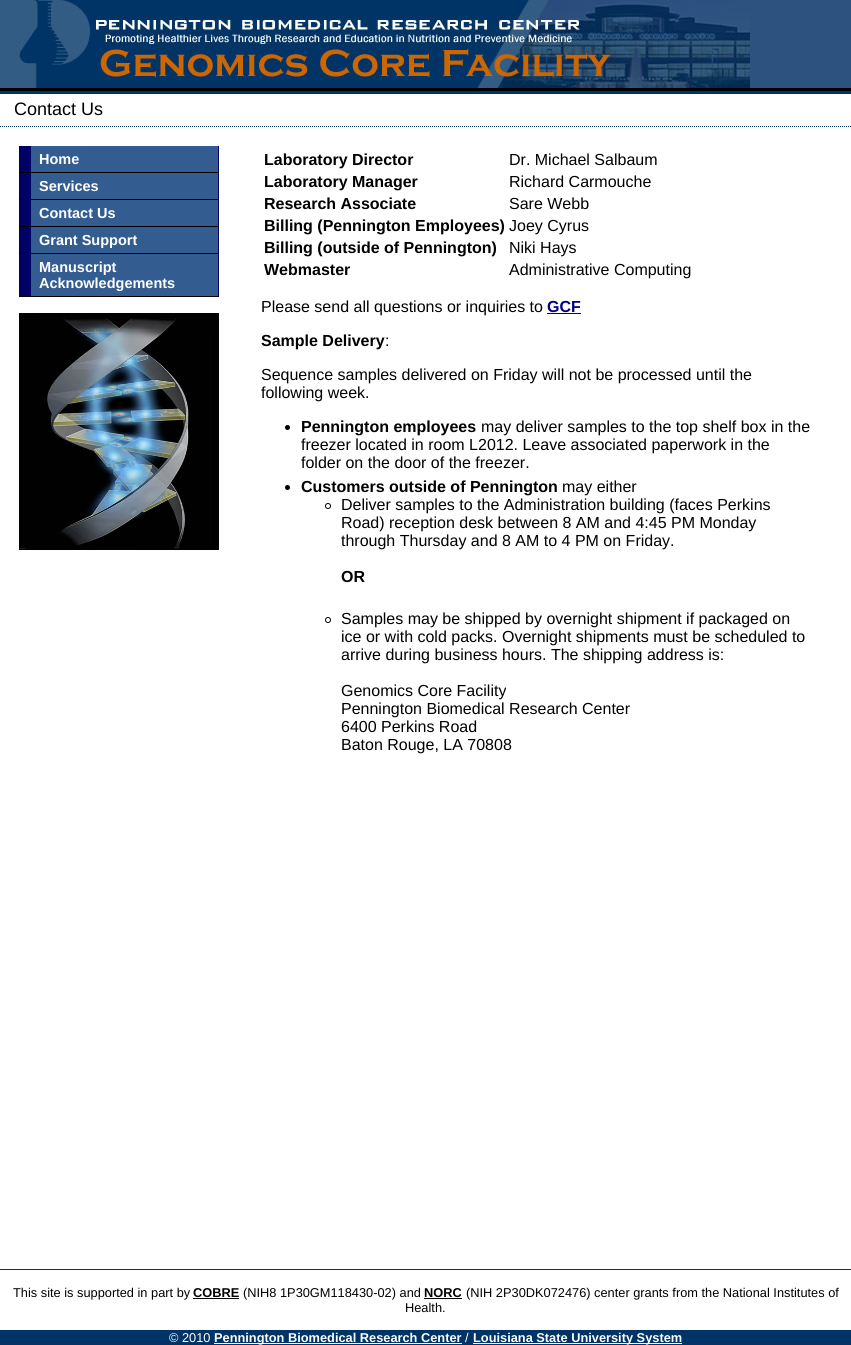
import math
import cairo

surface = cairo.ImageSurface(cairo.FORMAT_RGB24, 851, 1345)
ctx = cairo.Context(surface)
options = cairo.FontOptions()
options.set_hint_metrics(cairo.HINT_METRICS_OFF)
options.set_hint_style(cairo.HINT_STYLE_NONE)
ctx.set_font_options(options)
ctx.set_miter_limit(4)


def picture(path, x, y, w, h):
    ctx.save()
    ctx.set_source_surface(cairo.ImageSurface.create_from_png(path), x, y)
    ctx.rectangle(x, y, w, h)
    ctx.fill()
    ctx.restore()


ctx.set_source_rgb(1, 1, 1)
ctx.paint()
ctx.set_source_rgb(0.176, 0.322, 0.498)
ctx.rectangle(750, 0, 101, 88)
ctx.fill()
ctx.set_source_rgb(0, 0, 0)
ctx.rectangle(0, 88, 851, 3)
ctx.fill()
picture("img1.png", 0, 0, 750, 88)
ctx.set_source_rgb(0, 0.2, 0.4)
ctx.rectangle(0, 91, 851, 3)
ctx.fill()
ctx.new_path()
ctx.move_to(0, 126.5)
ctx.line_to(851, 126.5)
ctx.set_line_width(1)
ctx.set_dash([1, 1])
ctx.stroke()
ctx.select_font_face("Liberation Sans")
ctx.set_font_size(18)
ctx.set_source_rgb(0, 0, 0)
ctx.move_to(14, 115)
ctx.show_text("Contact Us")
ctx.rectangle(19, 172, 200, 1)
ctx.fill()
ctx.set_source_rgb(0.2, 0.365, 0.565)
ctx.rectangle(31, 146, 187, 26)
ctx.fill()
ctx.set_source_rgb(0, 0, 0.4)
ctx.rectangle(218, 146, 1, 26)
ctx.fill()
ctx.rectangle(19, 146, 12, 26)
ctx.fill()
ctx.select_font_face("Liberation Sans", cairo.FONT_SLANT_NORMAL, cairo.FONT_WEIGHT_BOLD)
ctx.set_font_size(14.5)
ctx.set_source_rgb(1, 1, 1)
ctx.move_to(39, 164)
ctx.show_text("Home")
ctx.set_source_rgb(0, 0, 0)
ctx.rectangle(19, 199, 200, 1)
ctx.fill()
ctx.set_source_rgb(0.2, 0.365, 0.565)
ctx.rectangle(31, 173, 187, 26)
ctx.fill()
ctx.set_source_rgb(0, 0, 0.4)
ctx.rectangle(218, 173, 1, 26)
ctx.fill()
ctx.rectangle(19, 173, 12, 26)
ctx.fill()
ctx.set_source_rgb(1, 1, 1)
ctx.move_to(39, 191)
ctx.show_text("Services")
ctx.set_source_rgb(0, 0, 0)
ctx.rectangle(19, 226, 200, 1)
ctx.fill()
ctx.set_source_rgb(0.2, 0.365, 0.565)
ctx.rectangle(31, 200, 187, 26)
ctx.fill()
ctx.set_source_rgb(0, 0, 0.4)
ctx.rectangle(218, 200, 1, 26)
ctx.fill()
ctx.rectangle(19, 200, 12, 26)
ctx.fill()
ctx.set_source_rgb(1, 1, 1)
ctx.move_to(39, 218)
ctx.show_text("Contact Us")
ctx.set_source_rgb(0, 0, 0)
ctx.rectangle(19, 253, 200, 1)
ctx.fill()
ctx.set_source_rgb(0.2, 0.365, 0.565)
ctx.rectangle(31, 227, 187, 26)
ctx.fill()
ctx.set_source_rgb(0, 0, 0.4)
ctx.rectangle(218, 227, 1, 26)
ctx.fill()
ctx.rectangle(19, 227, 12, 26)
ctx.fill()
ctx.set_source_rgb(1, 1, 1)
ctx.move_to(39, 245)
ctx.show_text("Grant Support")
ctx.set_source_rgb(0, 0, 0)
ctx.rectangle(19, 296, 200, 1)
ctx.fill()
ctx.set_source_rgb(0.2, 0.365, 0.565)
ctx.rectangle(31, 254, 187, 42)
ctx.fill()
ctx.set_source_rgb(0, 0, 0.4)
ctx.rectangle(218, 254, 1, 42)
ctx.fill()
ctx.rectangle(19, 254, 12, 42)
ctx.fill()
ctx.set_source_rgb(1, 1, 1)
ctx.move_to(39, 272)
ctx.show_text("Manuscript")
ctx.move_to(39, 288)
ctx.show_text("Acknowledgements")
picture("img2.png", 19, 313, 200, 237)
ctx.set_font_size(16)
ctx.set_source_rgb(0, 0, 0)
ctx.move_to(264, 165)
ctx.show_text("Laboratory Director")
ctx.select_font_face("Liberation Sans")
ctx.move_to(509, 165)
ctx.show_text("Dr. Michael Salbaum")
ctx.select_font_face("Liberation Sans", cairo.FONT_SLANT_NORMAL, cairo.FONT_WEIGHT_BOLD)
ctx.move_to(264, 187)
ctx.show_text("Laboratory Manager")
ctx.select_font_face("Liberation Sans")
ctx.move_to(509, 187)
ctx.show_text("Richard Carmouche")
ctx.select_font_face("Liberation Sans", cairo.FONT_SLANT_NORMAL, cairo.FONT_WEIGHT_BOLD)
ctx.move_to(264, 209)
ctx.show_text("Research Associate")
ctx.select_font_face("Liberation Sans")
ctx.move_to(509, 209)
ctx.show_text("Sare Webb")
ctx.select_font_face("Liberation Sans", cairo.FONT_SLANT_NORMAL, cairo.FONT_WEIGHT_BOLD)
ctx.move_to(264, 231)
ctx.show_text("Billing (Pennington Employees)")
ctx.select_font_face("Liberation Sans")
ctx.move_to(509, 231)
ctx.show_text("Joey Cyrus")
ctx.select_font_face("Liberation Sans", cairo.FONT_SLANT_NORMAL, cairo.FONT_WEIGHT_BOLD)
ctx.move_to(264, 253)
ctx.show_text("Billing (outside of Pennington)")
ctx.select_font_face("Liberation Sans")
ctx.move_to(509, 253)
ctx.show_text("Niki Hays")
ctx.select_font_face("Liberation Sans", cairo.FONT_SLANT_NORMAL, cairo.FONT_WEIGHT_BOLD)
ctx.move_to(264, 275)
ctx.show_text("Webmaster")
ctx.select_font_face("Liberation Sans")
ctx.move_to(509, 275)
ctx.show_text("Administrative Computing")
ctx.move_to(261, 312)
ctx.show_text("Please send all questions or inquiries to")
ctx.select_font_face("Liberation Sans", cairo.FONT_SLANT_NORMAL, cairo.FONT_WEIGHT_BOLD)
ctx.set_source_rgb(0, 0, 0.502)
ctx.move_to(547, 312)
ctx.show_text("GCF")
ctx.rectangle(547, 313, 34, 1)
ctx.fill()
ctx.set_source_rgb(0, 0, 0)
ctx.move_to(261, 346)
ctx.show_text("Sample Delivery")
ctx.select_font_face("Liberation Sans")
ctx.move_to(385, 346)
ctx.show_text(":")
ctx.move_to(261, 380)
ctx.show_text("Sequence samples delivered on Friday will not be processed until the")
ctx.move_to(261, 398)
ctx.show_text("following week.")
ctx.new_path()
ctx.arc(287.5, 427.5, 2.5, 0, 2 * math.pi)
ctx.fill()
ctx.select_font_face("Liberation Sans", cairo.FONT_SLANT_NORMAL, cairo.FONT_WEIGHT_BOLD)
ctx.move_to(301, 432)
ctx.show_text("Pennington employees")
ctx.select_font_face("Liberation Sans")
ctx.move_to(481, 432)
ctx.show_text("may deliver samples to the top shelf box in the")
ctx.move_to(301, 450)
ctx.show_text("freezer located in room L2012. Leave associated paperwork in the")
ctx.move_to(301, 468)
ctx.show_text("folder on the door of the freezer.")
ctx.new_path()
ctx.arc(287.5, 487.5, 2.5, 0, 2 * math.pi)
ctx.fill()
ctx.select_font_face("Liberation Sans", cairo.FONT_SLANT_NORMAL, cairo.FONT_WEIGHT_BOLD)
ctx.move_to(301, 492)
ctx.show_text("Customers outside of Pennington")
ctx.select_font_face("Liberation Sans")
ctx.move_to(562, 492)
ctx.show_text("may either")
ctx.new_path()
ctx.arc(328, 506, 2.5, 0, 2 * math.pi)
ctx.set_dash([])
ctx.stroke()
ctx.move_to(341, 510)
ctx.show_text("Deliver samples to the Administration building (faces Perkins")
ctx.move_to(341, 528)
ctx.show_text("Road) reception desk between 8 AM and 4:45 PM Monday")
ctx.move_to(341, 546)
ctx.show_text("through Thursday and 8 AM to 4 PM on Friday.")
ctx.select_font_face("Liberation Sans", cairo.FONT_SLANT_NORMAL, cairo.FONT_WEIGHT_BOLD)
ctx.move_to(341, 582)
ctx.show_text("OR")
ctx.new_path()
ctx.arc(328, 620, 2.5, 0, 2 * math.pi)
ctx.stroke()
ctx.select_font_face("Liberation Sans")
ctx.move_to(341, 624)
ctx.show_text("Samples may be shipped by overnight shipment if packaged on")
ctx.move_to(341, 642)
ctx.show_text("ice or with cold packs. Overnight shipments must be scheduled to")
ctx.move_to(341, 660)
ctx.show_text("arrive during business hours. The shipping address is:")
ctx.move_to(341, 696)
ctx.show_text("Genomics Core Facility")
ctx.move_to(341, 714)
ctx.show_text("Pennington Biomedical Research Center")
ctx.move_to(341, 732)
ctx.show_text("6400 Perkins Road")
ctx.move_to(341, 750)
ctx.show_text("Baton Rouge, LA 70808")
ctx.set_source_rgb(0, 0.2, 0.4)
ctx.rectangle(0, 1269, 851, 76)
ctx.fill()
ctx.set_source_rgb(1, 1, 1)
ctx.rectangle(0, 1270, 851, 60)
ctx.fill()
ctx.set_font_size(12.8)
ctx.set_source_rgb(0, 0, 0)
ctx.move_to(13, 1297)
ctx.show_text("This site is supported in part by")
ctx.select_font_face("Liberation Sans", cairo.FONT_SLANT_NORMAL, cairo.FONT_WEIGHT_BOLD)
ctx.move_to(193, 1297)
ctx.show_text("COBRE")
ctx.rectangle(193, 1298, 46, 1)
ctx.fill()
ctx.select_font_face("Liberation Sans")
ctx.move_to(243, 1297)
ctx.show_text("(NIH8 1P30GM118430-02) and")
ctx.select_font_face("Liberation Sans", cairo.FONT_SLANT_NORMAL, cairo.FONT_WEIGHT_BOLD)
ctx.move_to(424, 1297)
ctx.show_text("NORC")
ctx.rectangle(424, 1298, 38, 1)
ctx.fill()
ctx.select_font_face("Liberation Sans")
ctx.move_to(466, 1297)
ctx.show_text("(NIH 2P30DK072476) center grants from the National Institutes of")
ctx.move_to(405, 1312)
ctx.show_text("Health.")
ctx.set_source_rgb(1, 1, 1)
ctx.move_to(169, 1342)
ctx.show_text("© 2010")
ctx.rectangle(214, 1343, 248, 1)
ctx.fill()
ctx.select_font_face("Liberation Sans", cairo.FONT_SLANT_NORMAL, cairo.FONT_WEIGHT_BOLD)
ctx.move_to(214, 1342)
ctx.show_text("Pennington Biomedical Research Center")
ctx.select_font_face("Liberation Sans")
ctx.move_to(465, 1342)
ctx.show_text("/")
ctx.rectangle(473, 1343, 209, 1)
ctx.fill()
ctx.select_font_face("Liberation Sans", cairo.FONT_SLANT_NORMAL, cairo.FONT_WEIGHT_BOLD)
ctx.move_to(473, 1342)
ctx.show_text("Louisiana State University System")
surface.write_to_png("page.png")
